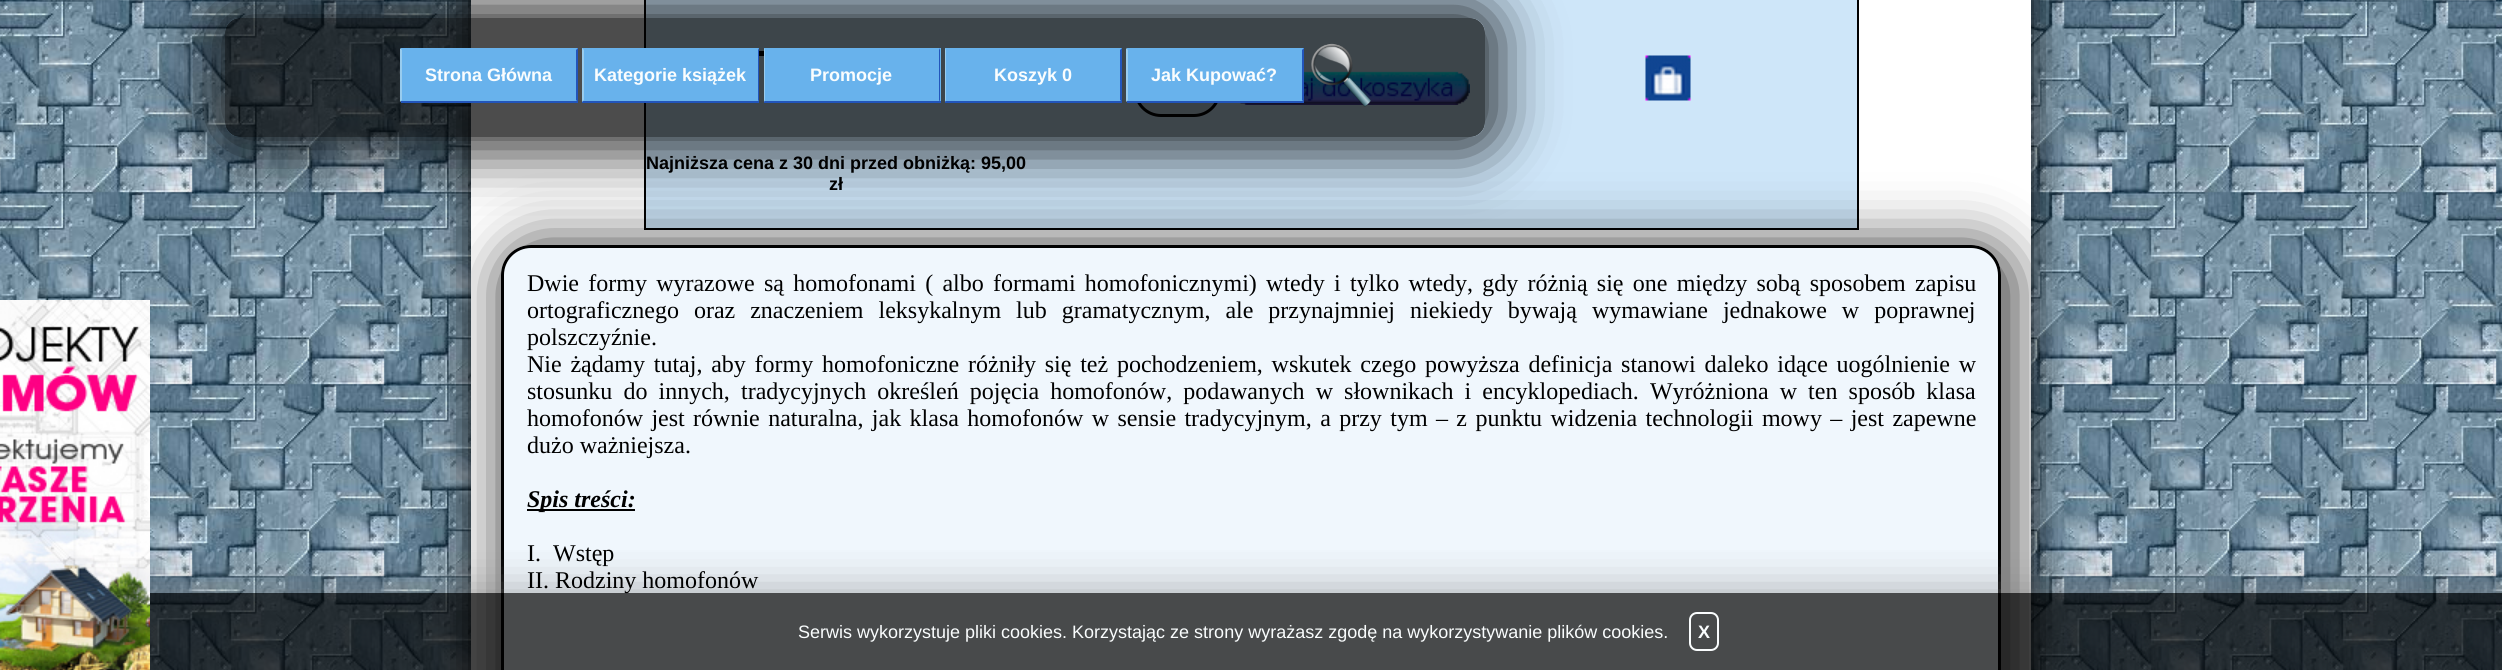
import math
import cairo

surface = cairo.ImageSurface(cairo.FORMAT_RGB24, 2502, 670)
ctx = cairo.Context(surface)
options = cairo.FontOptions()
options.set_hint_metrics(cairo.HINT_METRICS_OFF)
options.set_hint_style(cairo.HINT_STYLE_NONE)
ctx.set_font_options(options)
ctx.set_miter_limit(4)


def spaced_text(x, y, s, letter, word):
    ctx.move_to(x, y)
    for ch in s:
        ctx.show_text(ch)
        ctx.rel_move_to(letter + word * (ch == ' '), 0)


def round_rect(x, y, w, h, r):
    ctx.new_sub_path()
    for i, (u, v) in enumerate([(x + w - r, y + h - r), (x + r, y + h - r), (x + r, y + r), (x + w - r, y + r)]):
        ctx.arc(u, v, r, i * math.pi / 2, (i + 1) * math.pi / 2)
    ctx.close_path()


def shadow(x, y, w, h, r, blur, alpha):
    ctx.push_group_with_content(cairo.CONTENT_ALPHA)
    ctx.set_operator(cairo.OPERATOR_SOURCE)
    for i in range(15, -16, -2):
        e = blur * i / 6
        if min(w, h) + 2 * e > 0:
            ctx.set_source_rgba(0, 0, 0, alpha * math.erfc((i - 1) / 8.5) / 2)
            round_rect(x - e, y - e, w + 2 * e, h + 2 * e, max(0, min(r + e + blur * .6, min(w, h) / 2 + e)))
            ctx.fill()
    ctx.mask(ctx.pop_group())


def picture(path, x, y, w, h):
    ctx.save()
    ctx.set_source_surface(cairo.ImageSurface.create_from_png(path), x, y)
    ctx.rectangle(x, y, w, h)
    ctx.fill()
    ctx.restore()


ctx.set_source_rgb(1, 1, 1)
ctx.paint()
picture("img1.png", 0, 0, 2502, 670)
ctx.set_source_rgb(0, 0, 0)
shadow(471, -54, 1560, 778, 0, 18, 1)
ctx.set_source_rgb(1, 1, 1)
ctx.rectangle(471, 0, 1560, 670)
ctx.fill()
ctx.set_source_rgb(0.808, 0.902, 0.976)
ctx.rectangle(646, 0, 1211, 228)
ctx.fill()
ctx.set_source_rgb(0, 0, 0)
ctx.rectangle(1857, 0, 2, 230)
ctx.fill()
ctx.rectangle(644, 228, 1215, 2)
ctx.fill()
ctx.rectangle(644, 0, 2, 230)
ctx.fill()
ctx.save()
ctx.rectangle(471, 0, 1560, 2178)
ctx.clip()
ctx.set_fill_rule(cairo.FILL_RULE_EVEN_ODD)
ctx.new_path()
ctx.move_to(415, 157)
ctx.line_to(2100, 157)
ctx.line_to(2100, 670)
ctx.line_to(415, 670)
ctx.close_path()
ctx.move_to(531, 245)
ctx.line_to(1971, 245)
ctx.curve_to(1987.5, 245, 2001, 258.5, 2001, 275)
ctx.line_to(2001, 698)
ctx.curve_to(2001, 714.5, 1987.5, 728, 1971, 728)
ctx.line_to(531, 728)
ctx.curve_to(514.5, 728, 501, 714.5, 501, 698)
ctx.line_to(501, 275)
ctx.curve_to(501, 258.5, 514.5, 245, 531, 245)
ctx.close_path()
ctx.clip()
ctx.set_source_rgb(0, 0, 0)
shadow(500, 242, 1515, 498, 38, 28, 0.75)
ctx.restore()
ctx.set_source_rgba(0.408, 0.698, 0.925, 0.1)
round_rect(502.5, 246.5, 1497, 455, 28.5)
ctx.fill_preserve()
ctx.set_source_rgb(0, 0, 0)
ctx.set_line_width(3)
ctx.stroke()
ctx.save()
ctx.rectangle(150, 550, 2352, 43)
ctx.clip()
ctx.set_source_rgb(0.502, 0.502, 0.502)
shadow(0, 593, 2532, 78, 0, 22.5, 0.7)
ctx.restore()
picture("img2.png", 0, 300, 150, 370)
ctx.set_source_rgb(0.769, 0.851, 0.914)
round_rect(1135.5, 64.5, 84, 51, 25.5)
ctx.fill_preserve()
ctx.set_source_rgb(0, 0, 0)
ctx.stroke()
picture("img4.png", 1240, 71, 230, 34)
ctx.rectangle(752, 51, 12, 5)
ctx.fill()
ctx.save()
ctx.set_fill_rule(cairo.FILL_RULE_EVEN_ODD)
ctx.new_path()
ctx.move_to(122, 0)
ctx.line_to(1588, 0)
ctx.line_to(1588, 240)
ctx.line_to(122, 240)
ctx.close_path()
ctx.move_to(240, 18)
ctx.line_to(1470, 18)
ctx.curve_to(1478.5, 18, 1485, 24.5, 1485, 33)
ctx.line_to(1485, 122)
ctx.curve_to(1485, 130.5, 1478.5, 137, 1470, 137)
ctx.line_to(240, 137)
ctx.curve_to(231.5, 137, 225, 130.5, 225, 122)
ctx.line_to(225, 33)
ctx.curve_to(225, 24.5, 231.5, 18, 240, 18)
ctx.close_path()
ctx.clip()
ctx.set_source_rgb(0, 0, 0)
shadow(207, 0, 1296, 155, 33, 28, 0.75)
ctx.restore()
ctx.set_source_rgba(0, 0, 0, 0.7)
round_rect(225, 18, 1260, 119, 15)
ctx.fill()
ctx.set_source_rgb(0.408, 0.698, 0.925)
ctx.rectangle(401, 48, 177, 53)
ctx.fill()
ctx.set_source_rgb(0.133, 0.333, 0.733)
ctx.new_path()
ctx.move_to(578, 48)
ctx.line_to(578, 102)
ctx.line_to(576, 100)
ctx.line_to(576, 50)
ctx.close_path()
ctx.fill()
ctx.rectangle(401, 101, 177, 2)
ctx.fill()
ctx.set_source_rgb(0.6, 0.8, 0.933)
ctx.new_path()
ctx.move_to(400, 102)
ctx.line_to(400, 48)
ctx.line_to(402, 50)
ctx.line_to(402, 100)
ctx.close_path()
ctx.fill()
ctx.select_font_face("Liberation Sans", cairo.FONT_SLANT_NORMAL, cairo.FONT_WEIGHT_BOLD)
ctx.set_font_size(18)
ctx.set_source_rgb(0.98, 0.992, 0.996)
ctx.move_to(425, 81)
ctx.show_text("Strona Główna")
ctx.set_source_rgb(0.408, 0.698, 0.925)
ctx.rectangle(582, 48, 177, 53)
ctx.fill()
ctx.set_source_rgb(0.133, 0.333, 0.733)
ctx.new_path()
ctx.move_to(759, 48)
ctx.line_to(759, 102)
ctx.line_to(758, 100)
ctx.line_to(758, 50)
ctx.close_path()
ctx.fill()
ctx.rectangle(582, 101, 177, 2)
ctx.fill()
ctx.set_source_rgb(0.6, 0.8, 0.933)
ctx.new_path()
ctx.move_to(582, 102)
ctx.line_to(582, 48)
ctx.line_to(584, 50)
ctx.line_to(584, 100)
ctx.close_path()
ctx.fill()
ctx.set_source_rgb(0.98, 0.992, 0.996)
ctx.move_to(594, 81)
ctx.show_text("Kategorie książek")
ctx.set_source_rgb(0.408, 0.698, 0.925)
ctx.rectangle(764, 48, 177, 53)
ctx.fill()
ctx.set_source_rgb(0.133, 0.333, 0.733)
ctx.new_path()
ctx.move_to(940, 48)
ctx.line_to(940, 102)
ctx.line_to(939, 100)
ctx.line_to(939, 50)
ctx.close_path()
ctx.fill()
ctx.rectangle(764, 101, 177, 2)
ctx.fill()
ctx.set_source_rgb(0.6, 0.8, 0.933)
ctx.new_path()
ctx.move_to(764, 102)
ctx.line_to(764, 48)
ctx.line_to(765, 50)
ctx.line_to(765, 100)
ctx.close_path()
ctx.fill()
ctx.set_source_rgb(0.98, 0.992, 0.996)
ctx.move_to(810, 81)
ctx.show_text("Promocje")
ctx.set_source_rgb(0.408, 0.698, 0.925)
ctx.rectangle(945, 48, 177, 53)
ctx.fill()
ctx.set_source_rgb(0.133, 0.333, 0.733)
ctx.new_path()
ctx.move_to(1122, 48)
ctx.line_to(1122, 102)
ctx.line_to(1120, 100)
ctx.line_to(1120, 50)
ctx.close_path()
ctx.fill()
ctx.rectangle(945, 101, 177, 2)
ctx.fill()
ctx.set_source_rgb(0.6, 0.8, 0.933)
ctx.new_path()
ctx.move_to(945, 102)
ctx.line_to(945, 48)
ctx.line_to(946, 50)
ctx.line_to(946, 100)
ctx.close_path()
ctx.fill()
ctx.set_source_rgb(0.98, 0.992, 0.996)
ctx.move_to(994, 81)
ctx.show_text("Koszyk 0")
ctx.set_source_rgb(0.408, 0.698, 0.925)
ctx.rectangle(1127, 48, 177, 53)
ctx.fill()
ctx.set_source_rgb(0.133, 0.333, 0.733)
ctx.new_path()
ctx.move_to(1304, 48)
ctx.line_to(1304, 102)
ctx.line_to(1302, 100)
ctx.line_to(1302, 50)
ctx.close_path()
ctx.fill()
ctx.rectangle(1127, 101, 177, 2)
ctx.fill()
ctx.set_source_rgb(0.6, 0.8, 0.933)
ctx.new_path()
ctx.move_to(1126, 102)
ctx.line_to(1126, 48)
ctx.line_to(1128, 50)
ctx.line_to(1128, 100)
ctx.close_path()
ctx.fill()
ctx.set_source_rgb(0.98, 0.992, 0.996)
ctx.move_to(1151, 81)
ctx.show_text("Jak Kupować?")
picture("img3.png", 1311, 43, 60, 64)
picture("img5.png", 1645, 55, 46, 46)
ctx.set_source_rgb(0, 0, 0)
ctx.move_to(646, 169)
ctx.show_text("Najniższa cena z 30 dni przed obniżką: 95,00")
ctx.move_to(829, 190)
ctx.show_text("zł")
ctx.select_font_face("Liberation Serif")
ctx.set_font_size(24)
spaced_text(527, 291, "Dwie formy wyrazowe są homofonami ( albo formami homofonicznymi) wtedy i tylko wtedy, gdy różnią się one między sobą sposobem zapisu", 0, 3.25)
spaced_text(527, 318, "ortograficznego oraz znaczeniem leksykalnym lub gramatycznym, ale przynajmniej niekiedy bywają wymawiane jednakowe w poprawnej", 0, 9)
ctx.move_to(527, 345)
ctx.show_text("polszczyźnie.")
spaced_text(527, 372, "Nie żądamy tutaj, aby formy homofoniczne różniły się też pochodzeniem, wskutek czego powyższa definicja stanowi daleko idące uogólnienie w", 0, 2.75)
spaced_text(527, 399, "stosunku do innych, tradycyjnych określeń pojęcia homofonów, podawanych w słownikach i encyklopediach. Wyróżniona w ten sposób klasa", 0, 5.1)
spaced_text(527, 426, "homofonów jest równie naturalna, jak klasa homofonów w sensie tradycyjnym, a przy tym – z punktu widzenia technologii mowy – jest zapewne", 0, 2.4)
ctx.move_to(527, 453)
ctx.show_text("dużo ważniejsza.")
ctx.rectangle(527, 509, 108, 2)
ctx.fill()
ctx.select_font_face("Liberation Serif", cairo.FONT_SLANT_ITALIC, cairo.FONT_WEIGHT_BOLD)
ctx.move_to(527, 507)
ctx.show_text("Spis treści:")
ctx.select_font_face("Liberation Serif")
ctx.move_to(527, 561)
ctx.show_text("I.  Wstęp")
ctx.move_to(527, 588)
ctx.show_text("II. Rodziny homofonów")
ctx.set_source_rgba(0, 0, 0, 0.7)
ctx.rectangle(150, 593, 2352, 77)
ctx.fill()
ctx.select_font_face("Liberation Sans")
ctx.set_font_size(18)
ctx.set_source_rgb(0.98, 0.992, 0.996)
ctx.move_to(798, 638)
ctx.show_text("Serwis wykorzystuje pliki cookies. Korzystając ze strony wyrażasz zgodę na wykorzystywanie plików cookies.")
round_rect(1690, 613, 28, 37, 7)
ctx.set_line_width(2)
ctx.stroke()
ctx.select_font_face("Liberation Sans", cairo.FONT_SLANT_NORMAL, cairo.FONT_WEIGHT_BOLD)
ctx.move_to(1698, 638)
ctx.show_text("X")
surface.write_to_png("page.png")
